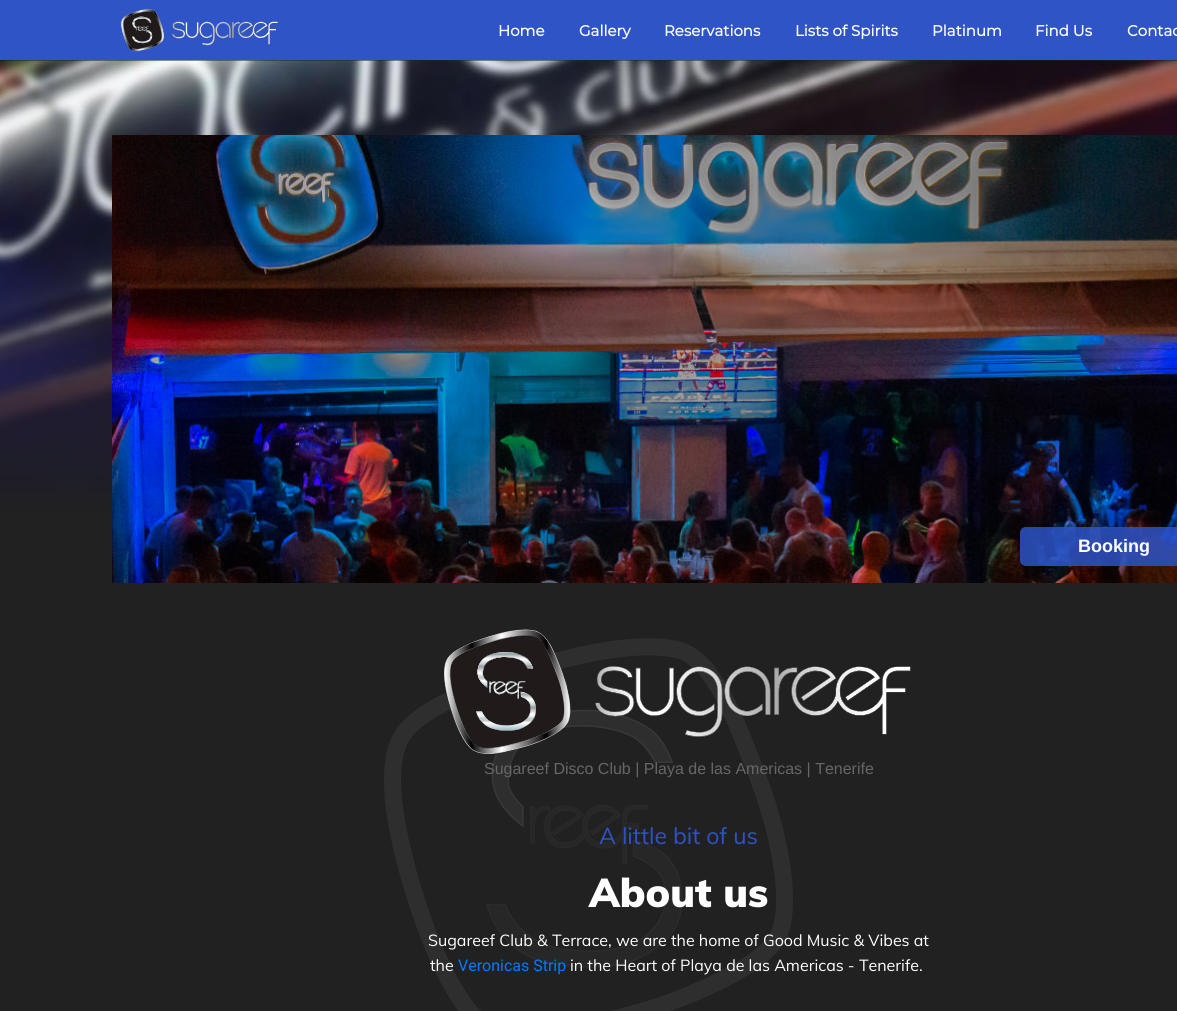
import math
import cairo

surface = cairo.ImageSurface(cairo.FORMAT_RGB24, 1177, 1011)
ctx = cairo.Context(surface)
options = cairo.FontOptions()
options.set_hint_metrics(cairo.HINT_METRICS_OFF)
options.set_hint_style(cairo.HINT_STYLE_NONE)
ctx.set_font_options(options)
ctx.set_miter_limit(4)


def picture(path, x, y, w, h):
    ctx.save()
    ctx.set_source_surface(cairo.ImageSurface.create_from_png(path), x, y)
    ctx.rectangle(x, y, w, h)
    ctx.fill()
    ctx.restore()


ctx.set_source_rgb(0.18, 0.329, 0.776)
ctx.paint()
picture("img1.png", 121, 8, 157, 44)
ctx.select_font_face("Montserrat", cairo.FONT_SLANT_NORMAL, cairo.FONT_WEIGHT_BOLD)
ctx.set_font_size(15)
ctx.set_source_rgb(1, 1, 1)
ctx.move_to(498, 36)
ctx.show_text("Home")
ctx.move_to(579, 36)
ctx.show_text("Gallery")
ctx.move_to(664, 36)
ctx.show_text("Reservations")
ctx.move_to(795, 36)
ctx.show_text("Lists of Spirits")
ctx.move_to(932, 36)
ctx.show_text("Platinum")
ctx.move_to(1035, 36)
ctx.show_text("Find Us")
ctx.move_to(1127, 36)
ctx.show_text("Contac")
picture("img2.png", 0, 60, 1177, 480)
ctx.set_source_rgb(0.129, 0.129, 0.133)
ctx.rectangle(0, 540, 1177, 471)
ctx.fill()
picture("img3.png", 112, 135, 1065, 448)
ctx.set_source_rgba(0.176, 0.325, 0.776, 0.85)
ctx.new_path()
ctx.move_to(1026, 527)
ctx.line_to(1177, 527)
ctx.line_to(1177, 566)
ctx.line_to(1026, 566)
ctx.curve_to(1022.5, 566, 1020, 563.5, 1020, 560)
ctx.line_to(1020, 533)
ctx.curve_to(1020, 529.5, 1022.5, 527, 1026, 527)
ctx.close_path()
ctx.fill()
ctx.select_font_face("Liberation Sans", cairo.FONT_SLANT_NORMAL, cairo.FONT_WEIGHT_BOLD)
ctx.set_font_size(18)
ctx.set_source_rgb(1, 1, 1)
ctx.move_to(1078, 552)
ctx.show_text("Booking")
picture("img4.png", 384, 638, 409, 373)
picture("img5.png", 444, 629, 467, 125)
ctx.select_font_face("Liberation Sans")
ctx.set_font_size(16)
ctx.set_source_rgb(0.4, 0.4, 0.4)
ctx.move_to(484, 774)
ctx.show_text("Sugareef Disco Club | Playa de las Americas | Tenerife")
ctx.select_font_face("Muli")
ctx.set_font_size(23)
ctx.set_source_rgb(0.176, 0.325, 0.776)
ctx.move_to(599, 844)
ctx.show_text("A little bit of us")
ctx.select_font_face("Muli Black")
ctx.set_font_size(40)
ctx.set_source_rgb(1, 1, 1)
ctx.move_to(589, 907)
ctx.show_text("About us")
ctx.select_font_face("Muli")
ctx.set_font_size(16)
ctx.move_to(428, 946)
ctx.show_text("Sugareef Club & Terrace, we are the home of Good Music & Vibes at")
ctx.move_to(430, 971)
ctx.show_text("the")
ctx.select_font_face("Roboto")
ctx.set_source_rgb(0, 0.482, 1)
ctx.move_to(458, 971)
ctx.show_text("Veronicas Strip")
ctx.select_font_face("Muli")
ctx.set_source_rgb(1, 1, 1)
ctx.move_to(570, 971)
ctx.show_text("in the Heart of Playa de las Americas - Tenerife.")
surface.write_to_png("page.png")
